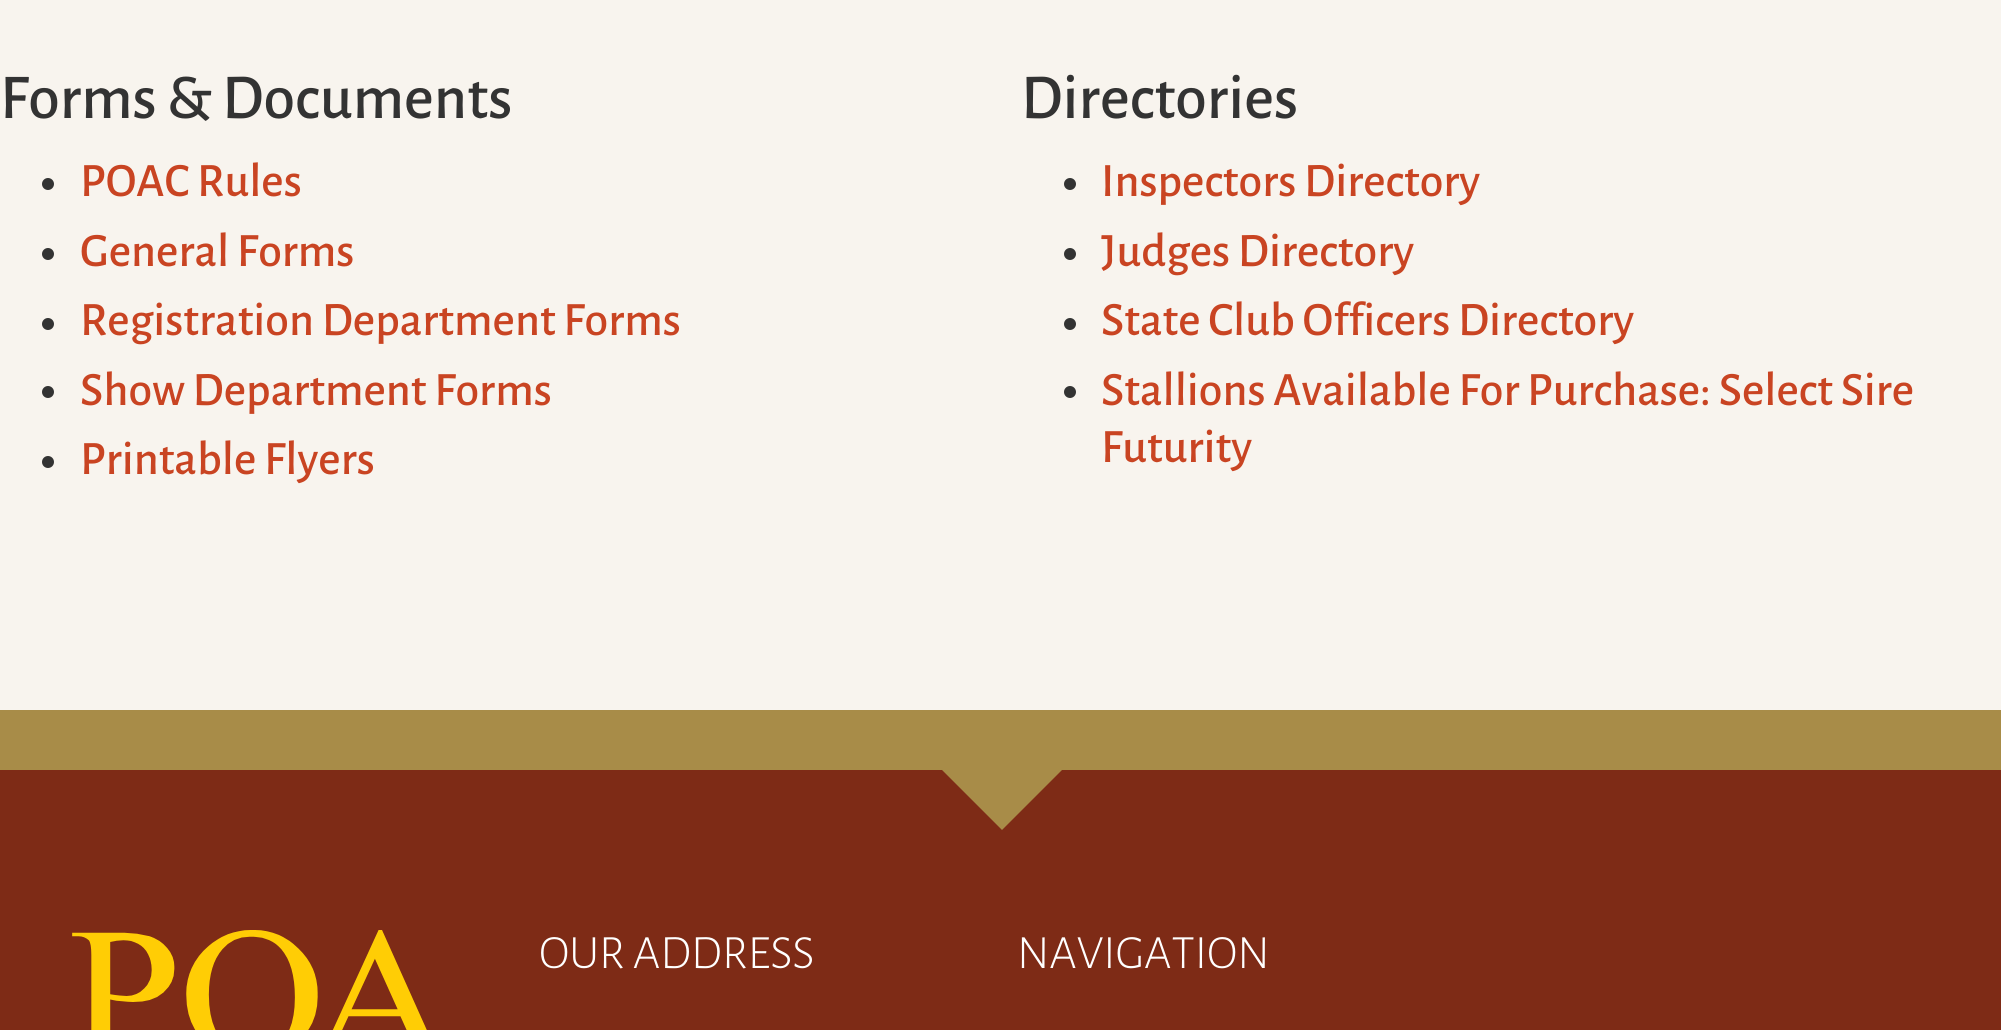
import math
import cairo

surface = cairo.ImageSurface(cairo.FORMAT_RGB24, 2001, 1030)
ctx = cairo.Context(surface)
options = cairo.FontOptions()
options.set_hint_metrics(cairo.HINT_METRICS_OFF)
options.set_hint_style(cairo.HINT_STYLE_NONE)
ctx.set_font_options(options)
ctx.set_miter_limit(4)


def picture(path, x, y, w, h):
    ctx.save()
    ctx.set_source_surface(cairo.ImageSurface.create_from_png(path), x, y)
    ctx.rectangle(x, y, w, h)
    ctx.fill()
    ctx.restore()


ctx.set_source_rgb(0.969, 0.957, 0.933)
ctx.paint()
ctx.select_font_face("Alegreya Sans Medium")
ctx.set_font_size(64)
ctx.set_source_rgb(0.2, 0.2, 0.2)
ctx.move_to(0, 118)
ctx.show_text("Forms & Documents")
ctx.new_path()
ctx.arc(48, 184, 6, 0, 2 * math.pi)
ctx.fill()
ctx.set_font_size(48)
ctx.set_source_rgb(0.788, 0.267, 0.133)
ctx.move_to(80, 196)
ctx.show_text("POAC Rules")
ctx.set_source_rgb(0.2, 0.2, 0.2)
ctx.new_path()
ctx.arc(48, 254, 6, 0, 2 * math.pi)
ctx.fill()
ctx.set_source_rgb(0.788, 0.267, 0.133)
ctx.move_to(80, 266)
ctx.show_text("General Forms")
ctx.set_source_rgb(0.2, 0.2, 0.2)
ctx.new_path()
ctx.arc(48, 324, 6, 0, 2 * math.pi)
ctx.fill()
ctx.set_source_rgb(0.788, 0.267, 0.133)
ctx.move_to(80, 335)
ctx.show_text("Registration Department Forms")
ctx.set_source_rgb(0.2, 0.2, 0.2)
ctx.new_path()
ctx.arc(48, 392, 6, 0, 2 * math.pi)
ctx.fill()
ctx.set_source_rgb(0.788, 0.267, 0.133)
ctx.move_to(80, 405)
ctx.show_text("Show Department Forms")
ctx.set_source_rgb(0.2, 0.2, 0.2)
ctx.new_path()
ctx.arc(48, 462, 6, 0, 2 * math.pi)
ctx.fill()
ctx.set_source_rgb(0.788, 0.267, 0.133)
ctx.move_to(80, 474)
ctx.show_text("Printable Flyers")
ctx.set_font_size(64)
ctx.set_source_rgb(0.2, 0.2, 0.2)
ctx.move_to(1021, 118)
ctx.show_text("Directories")
ctx.new_path()
ctx.arc(1070, 184, 6, 0, 2 * math.pi)
ctx.fill()
ctx.set_font_size(48)
ctx.set_source_rgb(0.788, 0.267, 0.133)
ctx.move_to(1101, 196)
ctx.show_text("Inspectors Directory")
ctx.set_source_rgb(0.2, 0.2, 0.2)
ctx.new_path()
ctx.arc(1070, 254, 6, 0, 2 * math.pi)
ctx.fill()
ctx.set_source_rgb(0.788, 0.267, 0.133)
ctx.move_to(1101, 266)
ctx.show_text("Judges Directory")
ctx.set_source_rgb(0.2, 0.2, 0.2)
ctx.new_path()
ctx.arc(1070, 324, 6, 0, 2 * math.pi)
ctx.fill()
ctx.set_source_rgb(0.788, 0.267, 0.133)
ctx.move_to(1101, 335)
ctx.show_text("State Club Officers Directory")
ctx.set_source_rgb(0.2, 0.2, 0.2)
ctx.new_path()
ctx.arc(1070, 392, 6, 0, 2 * math.pi)
ctx.fill()
ctx.set_source_rgb(0.788, 0.267, 0.133)
ctx.move_to(1101, 405)
ctx.show_text("Stallions Available For Purchase: Select Sire")
ctx.move_to(1101, 462)
ctx.show_text("Futurity")
ctx.set_source_rgb(0.494, 0.169, 0.086)
ctx.rectangle(0, 770, 2001, 260)
ctx.fill()
ctx.set_source_rgb(0.659, 0.549, 0.282)
ctx.rectangle(0, 710, 2001, 60)
ctx.fill()
ctx.new_path()
ctx.move_to(942, 770)
ctx.line_to(1062, 770)
ctx.line_to(1002, 830)
ctx.close_path()
ctx.fill()
picture("img1.png", 72, 930, 355, 100)
ctx.select_font_face("Alegreya Sans Light")
ctx.set_source_rgb(1, 1, 1)
ctx.move_to(539, 968)
ctx.show_text("OUR ADDRESS")
ctx.move_to(1017, 968)
ctx.show_text("NAVIGATION")
surface.write_to_png("page.png")
